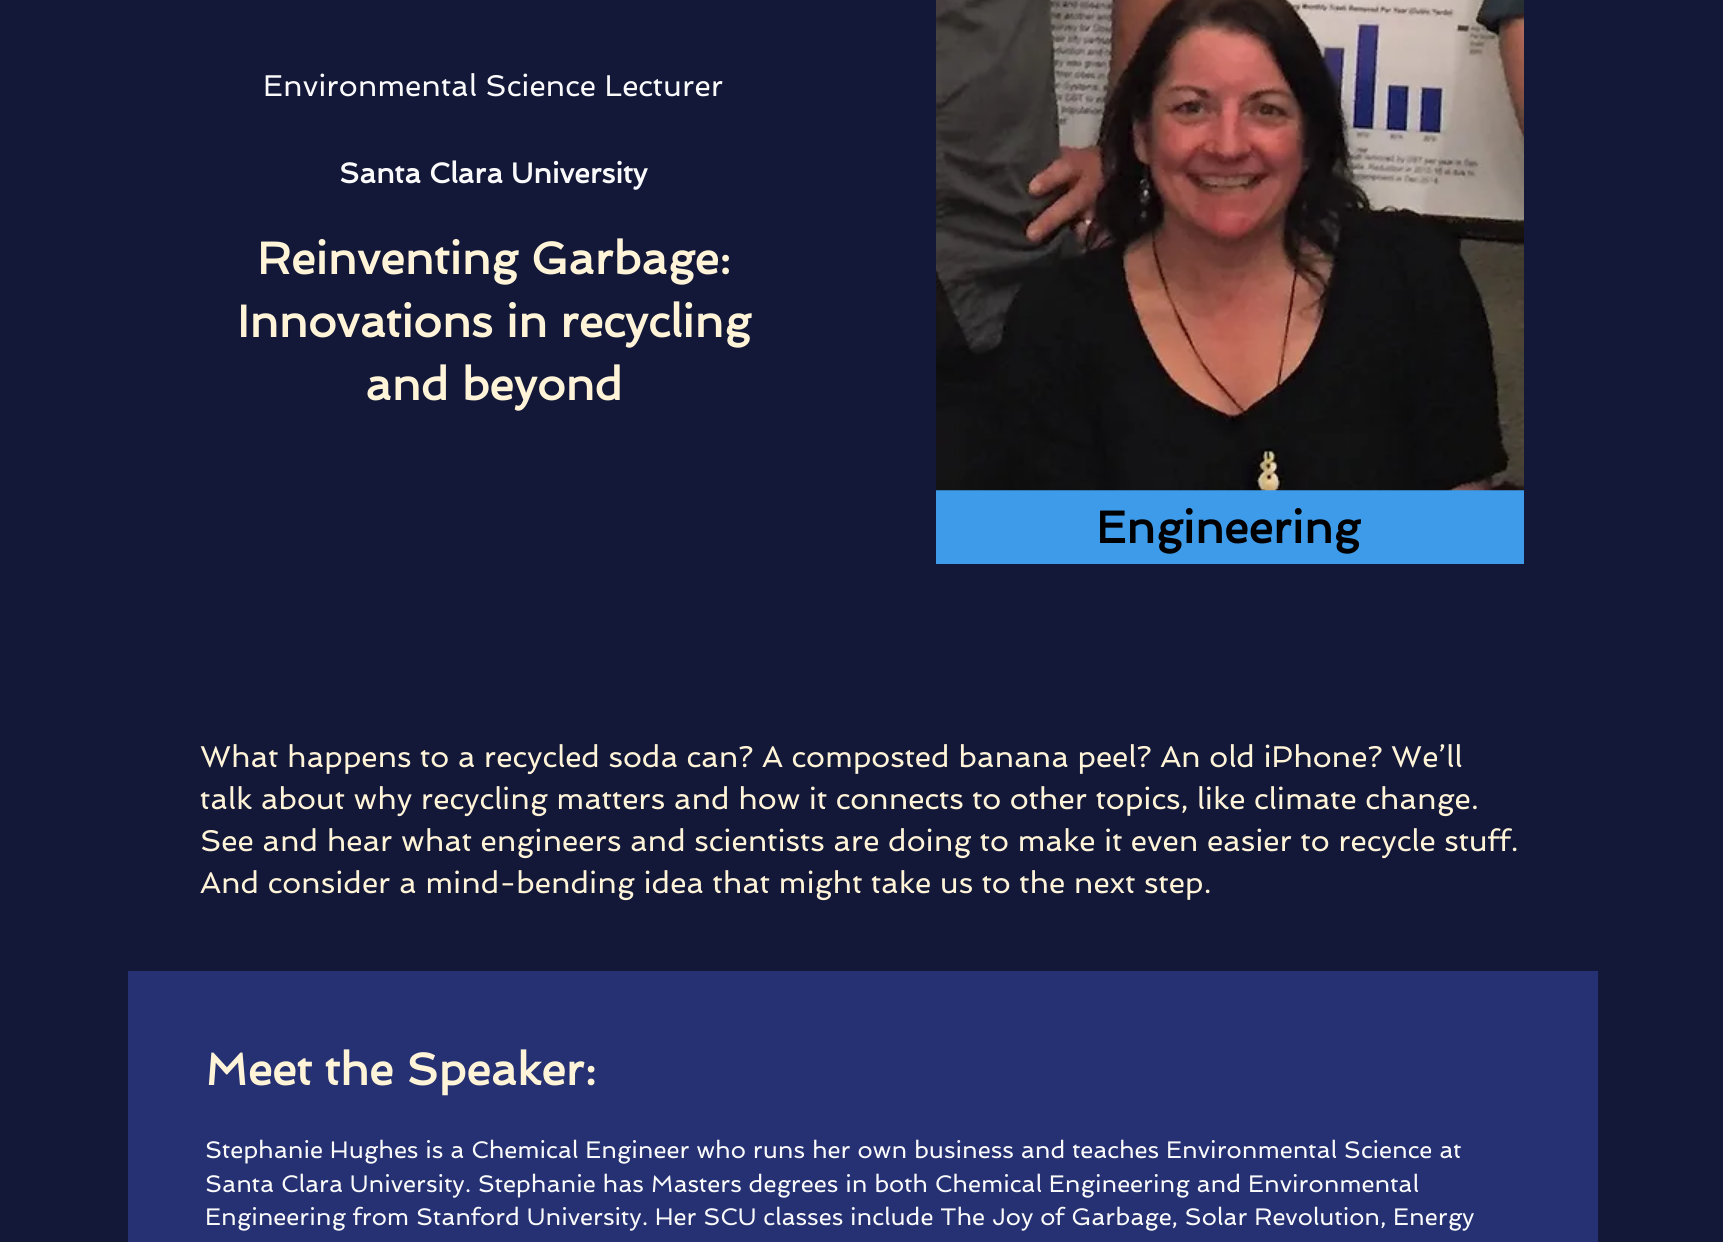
import math
import cairo

surface = cairo.ImageSurface(cairo.FORMAT_RGB24, 1723, 1242)
ctx = cairo.Context(surface)
options = cairo.FontOptions()
options.set_hint_metrics(cairo.HINT_METRICS_OFF)
options.set_hint_style(cairo.HINT_STYLE_NONE)
ctx.set_font_options(options)
ctx.set_miter_limit(4)


def picture(path, x, y, w, h):
    ctx.save()
    ctx.set_source_surface(cairo.ImageSurface.create_from_png(path), x, y)
    ctx.rectangle(x, y, w, h)
    ctx.fill()
    ctx.restore()


ctx.set_source_rgb(0.075, 0.094, 0.224)
ctx.paint()
ctx.select_font_face("Spinnaker")
ctx.set_font_size(30)
ctx.set_source_rgb(0.98, 0.98, 0.98)
ctx.move_to(263, 96)
ctx.show_text("Environmental Science Lecturer")
ctx.select_font_face("Spinnaker", cairo.FONT_SLANT_NORMAL, cairo.FONT_WEIGHT_BOLD)
ctx.set_font_size(28.5)
ctx.move_to(339, 183)
ctx.show_text("Santa Clara University")
ctx.set_font_size(45)
ctx.set_source_rgb(1, 0.957, 0.843)
ctx.move_to(257, 274)
ctx.show_text("Reinventing Garbage:")
ctx.move_to(237, 337)
ctx.show_text("Innovations in recycling")
ctx.move_to(365, 400)
ctx.show_text("and beyond")
ctx.set_source_rgb(0.239, 0.608, 0.914)
ctx.rectangle(936, 490, 588, 74)
ctx.fill()
picture("img1.png", 936, 0, 588, 491)
ctx.set_source_rgb(0, 0, 0)
ctx.move_to(1096, 543)
ctx.show_text("Engineering")
ctx.select_font_face("Spinnaker")
ctx.set_font_size(30)
ctx.set_source_rgb(1, 0.957, 0.843)
ctx.move_to(200, 767)
ctx.show_text("What happens to a recycled soda can? A composted banana peel? An old iPhone? We’ll")
ctx.move_to(200, 809)
ctx.show_text("talk about why recycling matters and how it connects to other topics, like climate change.")
ctx.move_to(200, 851)
ctx.show_text("See and hear what engineers and scientists are doing to make it even easier to recycle stuff.")
ctx.move_to(200, 893)
ctx.show_text("And consider a mind-bending idea that might take us to the next step.")
ctx.set_source_rgb(0.145, 0.192, 0.447)
ctx.rectangle(128, 971, 1470, 271)
ctx.fill()
ctx.select_font_face("Spinnaker", cairo.FONT_SLANT_NORMAL, cairo.FONT_WEIGHT_BOLD)
ctx.set_font_size(45)
ctx.set_source_rgb(1, 0.957, 0.843)
ctx.move_to(205, 1085)
ctx.show_text("Meet the Speaker:")
ctx.select_font_face("Spinnaker")
ctx.set_font_size(24)
ctx.set_source_rgb(0.98, 0.98, 0.98)
ctx.move_to(205, 1158)
ctx.show_text("Stephanie Hughes is a Chemical Engineer who runs her own business and teaches Environmental Science at")
ctx.move_to(205, 1192)
ctx.show_text("Santa Clara University. Stephanie has Masters degrees in both Chemical Engineering and Environmental")
ctx.move_to(205, 1225)
ctx.show_text("Engineering from Stanford University. Her SCU classes include The Joy of Garbage, Solar Revolution, Energy")
surface.write_to_png("page.png")
